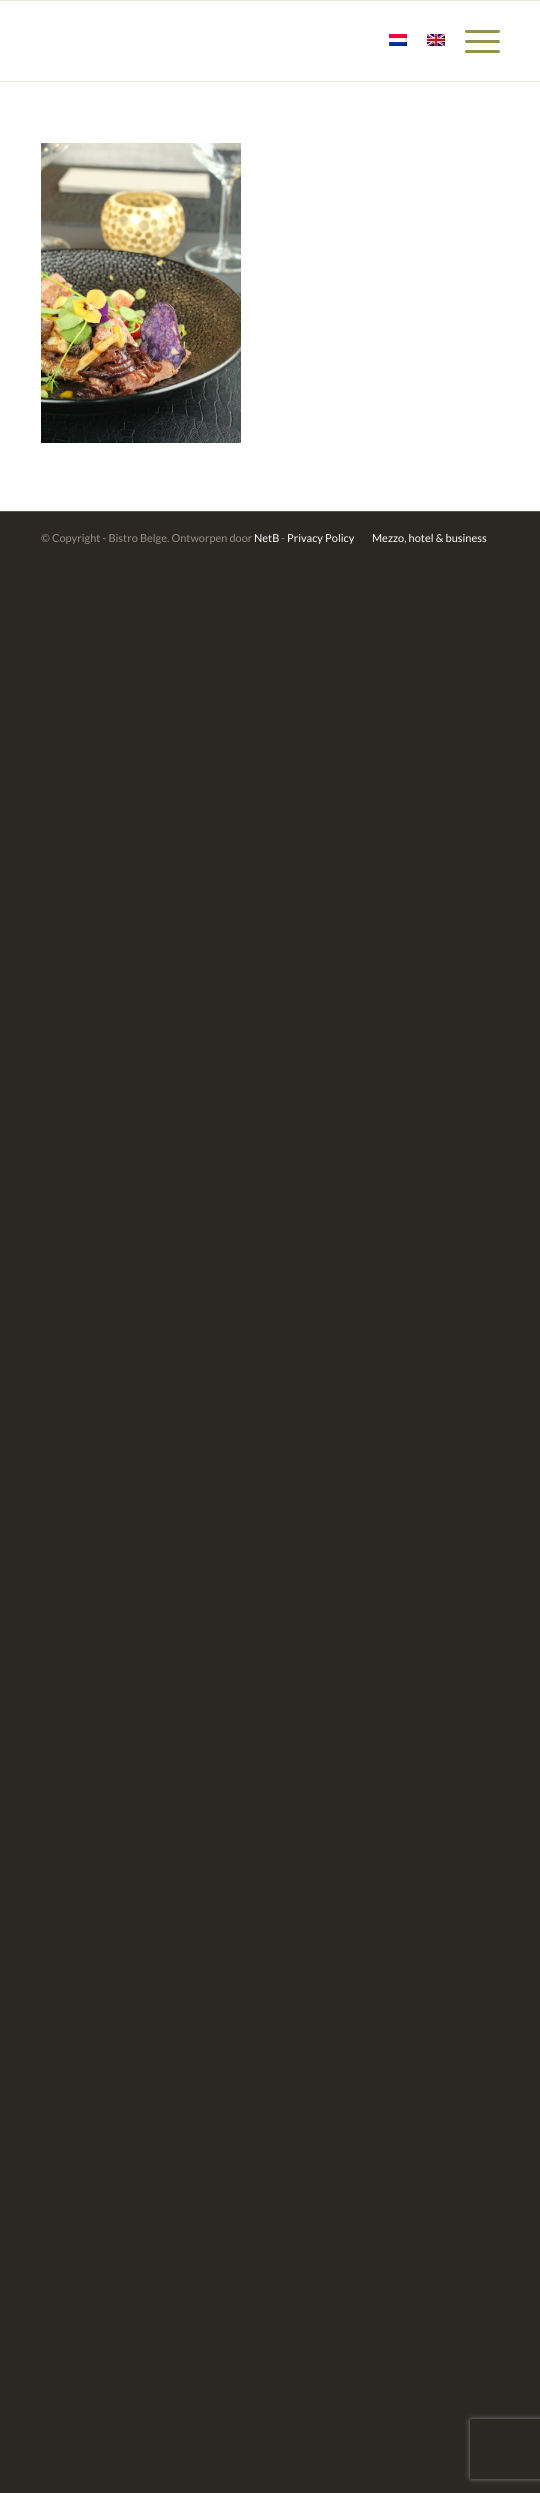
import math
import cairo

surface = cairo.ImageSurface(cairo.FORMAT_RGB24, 540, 2493)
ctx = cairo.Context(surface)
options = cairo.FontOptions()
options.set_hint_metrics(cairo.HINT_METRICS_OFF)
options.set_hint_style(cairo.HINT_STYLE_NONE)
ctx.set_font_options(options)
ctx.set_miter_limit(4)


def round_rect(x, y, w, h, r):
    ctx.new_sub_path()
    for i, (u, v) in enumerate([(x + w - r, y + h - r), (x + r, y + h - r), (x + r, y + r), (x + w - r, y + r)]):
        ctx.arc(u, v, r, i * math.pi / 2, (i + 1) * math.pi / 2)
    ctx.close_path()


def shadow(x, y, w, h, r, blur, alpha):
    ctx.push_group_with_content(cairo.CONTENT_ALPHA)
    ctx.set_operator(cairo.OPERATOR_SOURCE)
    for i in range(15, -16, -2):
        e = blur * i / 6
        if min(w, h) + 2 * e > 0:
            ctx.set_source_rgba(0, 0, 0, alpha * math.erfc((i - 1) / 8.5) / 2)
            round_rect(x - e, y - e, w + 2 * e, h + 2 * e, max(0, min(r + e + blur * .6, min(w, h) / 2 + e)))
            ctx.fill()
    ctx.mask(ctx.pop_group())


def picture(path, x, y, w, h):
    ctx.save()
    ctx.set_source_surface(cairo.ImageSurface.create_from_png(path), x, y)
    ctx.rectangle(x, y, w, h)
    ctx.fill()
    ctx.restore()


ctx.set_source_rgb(0.169, 0.157, 0.133)
ctx.paint()
ctx.set_source_rgb(0.922, 0.91, 0.886)
ctx.rectangle(0, 0, 540, 1)
ctx.fill()
ctx.rectangle(0, 81, 540, 1)
ctx.fill()
ctx.set_source_rgb(1, 1, 1)
ctx.rectangle(0, 1, 540, 80)
ctx.fill()
picture("img1.png", 389, 34, 18, 12)
picture("img2.png", 427, 34, 18, 12)
ctx.set_source_rgb(0.58, 0.569, 0.318)
round_rect(465, 40, 35, 3, 1.5)
ctx.fill()
round_rect(465, 30, 35, 3, 1.5)
ctx.fill()
round_rect(465, 50, 35, 3, 1.5)
ctx.fill()
ctx.set_source_rgb(1, 1, 1)
ctx.rectangle(0, 82, 540, 429)
ctx.fill()
picture("img3.png", 41, 143, 200, 300)
ctx.set_source_rgb(0.341, 0.318, 0.286)
ctx.rectangle(0, 511, 540, 1)
ctx.fill()
ctx.select_font_face("Lato")
ctx.set_font_size(11)
ctx.set_source_rgb(0.596, 0.561, 0.506)
ctx.move_to(41, 542)
ctx.show_text("© Copyright - Bistro Belge. Ontworpen door")
ctx.set_source_rgb(1, 1, 1)
ctx.move_to(254, 542)
ctx.show_text("NetB")
ctx.set_source_rgb(0.596, 0.561, 0.506)
ctx.move_to(281, 542)
ctx.show_text("-")
ctx.set_source_rgb(1, 1, 1)
ctx.move_to(287, 542)
ctx.show_text("Privacy Policy")
ctx.move_to(372, 542)
ctx.show_text("Mezzo, hotel & business")
ctx.save()
ctx.set_fill_rule(cairo.FILL_RULE_EVEN_ODD)
ctx.new_path()
ctx.move_to(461, 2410)
ctx.line_to(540, 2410)
ctx.line_to(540, 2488)
ctx.line_to(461, 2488)
ctx.close_path()
ctx.move_to(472, 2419)
ctx.line_to(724, 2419)
ctx.curve_to(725, 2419, 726, 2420, 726, 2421)
ctx.line_to(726, 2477)
ctx.curve_to(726, 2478, 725, 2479, 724, 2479)
ctx.line_to(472, 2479)
ctx.curve_to(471, 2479, 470, 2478, 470, 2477)
ctx.line_to(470, 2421)
ctx.curve_to(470, 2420, 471, 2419, 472, 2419)
ctx.close_path()
ctx.clip()
ctx.set_source_rgb(0.502, 0.502, 0.502)
shadow(470, 2419, 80, 60, 2, 2.5, 1)
ctx.restore()
surface.write_to_png("page.png")
